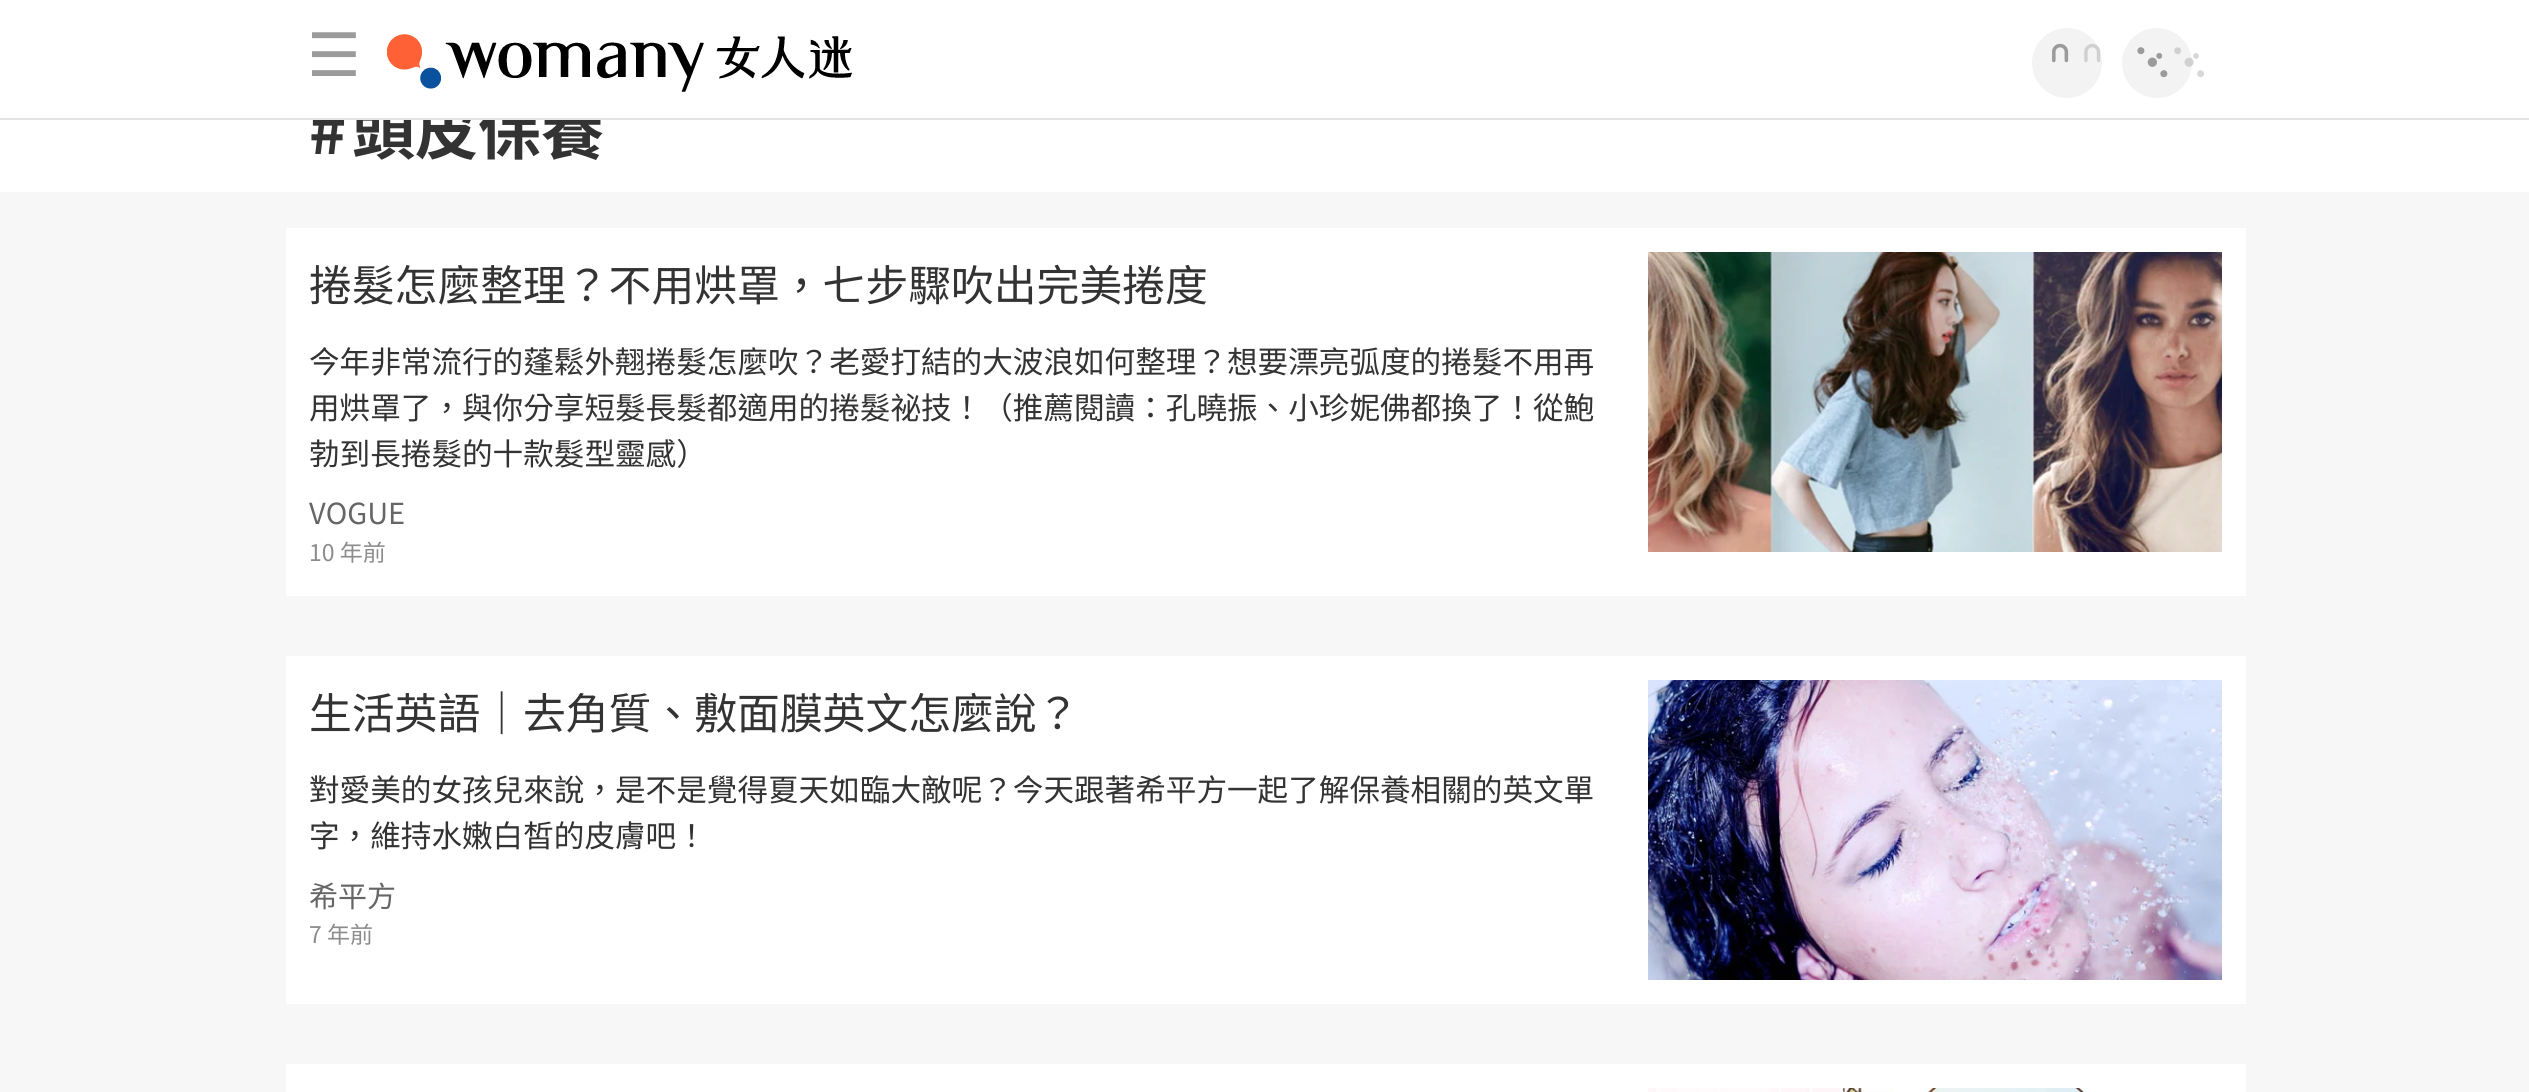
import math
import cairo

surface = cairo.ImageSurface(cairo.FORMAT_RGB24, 2529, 1092)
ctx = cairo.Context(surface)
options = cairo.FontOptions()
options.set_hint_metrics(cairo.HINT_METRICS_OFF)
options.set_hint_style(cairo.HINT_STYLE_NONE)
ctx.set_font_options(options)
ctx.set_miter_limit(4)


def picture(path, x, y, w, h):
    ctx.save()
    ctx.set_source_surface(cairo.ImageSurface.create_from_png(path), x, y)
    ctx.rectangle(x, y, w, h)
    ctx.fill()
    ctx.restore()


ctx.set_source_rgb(1, 1, 1)
ctx.paint()
ctx.select_font_face("Noto Sans TC", cairo.FONT_SLANT_NORMAL, cairo.FONT_WEIGHT_BOLD)
ctx.set_font_size(63)
ctx.set_source_rgb(0.2, 0.2, 0.2)
ctx.move_to(309, 154)
ctx.show_text("#")
ctx.move_to(352, 154)
ctx.show_text("頭皮保養")
ctx.set_source_rgb(1, 1, 1)
ctx.rectangle(319, 100, 279, 18)
ctx.fill()
ctx.set_source_rgb(0.89, 0.89, 0.89)
ctx.rectangle(0, 118, 2529, 2)
ctx.fill()
ctx.select_font_face("DejaVu Sans")
ctx.set_font_size(60)
ctx.set_source_rgb(0.608, 0.608, 0.608)
ctx.move_to(307, 76)
ctx.show_text("☰")
picture("img1.png", 387, 34, 465, 58)
ctx.set_source_rgb(0.953, 0.953, 0.953)
ctx.arc(2067, 63, 34, 0, 2 * math.pi)
ctx.fill_preserve()
ctx.stroke()
picture("img2.png", 2052, 43, 17, 20)
picture("img3.png", 2052, 43, 49, 20)
ctx.arc(2157, 63, 34, 0, 2 * math.pi)
ctx.fill_preserve()
ctx.stroke()
picture("img4.png", 2137, 47, 31, 31)
picture("img5.png", 2137, 47, 67, 31)
ctx.set_source_rgb(0.965, 0.965, 0.965)
ctx.rectangle(0, 192, 2529, 900)
ctx.fill()
ctx.set_source_rgb(1, 1, 1)
ctx.rectangle(286, 228, 1960, 368)
ctx.fill()
ctx.select_font_face("Noto Sans TC")
ctx.set_font_size(42.8)
ctx.set_source_rgb(0.2, 0.2, 0.2)
ctx.move_to(309, 301)
ctx.show_text("捲髮怎麼整理？不用烘罩，七步驟吹出完美捲度")
picture("img6.png", 1648, 252, 574, 300)
ctx.set_font_size(30.6)
ctx.move_to(309, 373)
ctx.show_text("今年非常流行的蓬鬆外翹捲髮怎麼吹？老愛打結的大波浪如何整理？想要漂亮弧度的捲髮不用再")
ctx.move_to(309, 419)
ctx.show_text("用烘罩了，與你分享短髮長髮都適用的捲髮祕技！（推薦閱讀：孔曉振、小珍妮佛都換了！從鮑")
ctx.move_to(309, 465)
ctx.show_text("勃到長捲髮的十款髮型靈感）")
ctx.set_font_size(29)
ctx.set_source_rgb(0.4, 0.4, 0.4)
ctx.move_to(309, 524)
ctx.show_text("VOGUE")
ctx.set_font_size(23)
ctx.set_source_rgb(0.549, 0.549, 0.549)
ctx.move_to(309, 561)
ctx.show_text("10 年前")
ctx.set_source_rgb(1, 1, 1)
ctx.rectangle(286, 656, 1960, 348)
ctx.fill()
ctx.set_font_size(42.8)
ctx.set_source_rgb(0.2, 0.2, 0.2)
ctx.move_to(309, 729)
ctx.show_text("生活英語｜去角質、敷面膜英文怎麼說？")
picture("img7.png", 1648, 680, 574, 300)
ctx.set_font_size(30.6)
ctx.move_to(309, 801)
ctx.show_text("對愛美的女孩兒來說，是不是覺得夏天如臨大敵呢？今天跟著希平方一起了解保養相關的英文單")
ctx.move_to(309, 847)
ctx.show_text("字，維持水嫩白皙的皮膚吧！")
ctx.set_font_size(29)
ctx.set_source_rgb(0.4, 0.4, 0.4)
ctx.move_to(309, 907)
ctx.show_text("希平方")
ctx.set_font_size(23)
ctx.set_source_rgb(0.549, 0.549, 0.549)
ctx.move_to(309, 943)
ctx.show_text("7 年前")
ctx.set_source_rgb(1, 1, 1)
ctx.rectangle(286, 1064, 1960, 28)
ctx.fill()
picture("img8.png", 1648, 1088, 443, 4)
surface.write_to_png("page.png")
